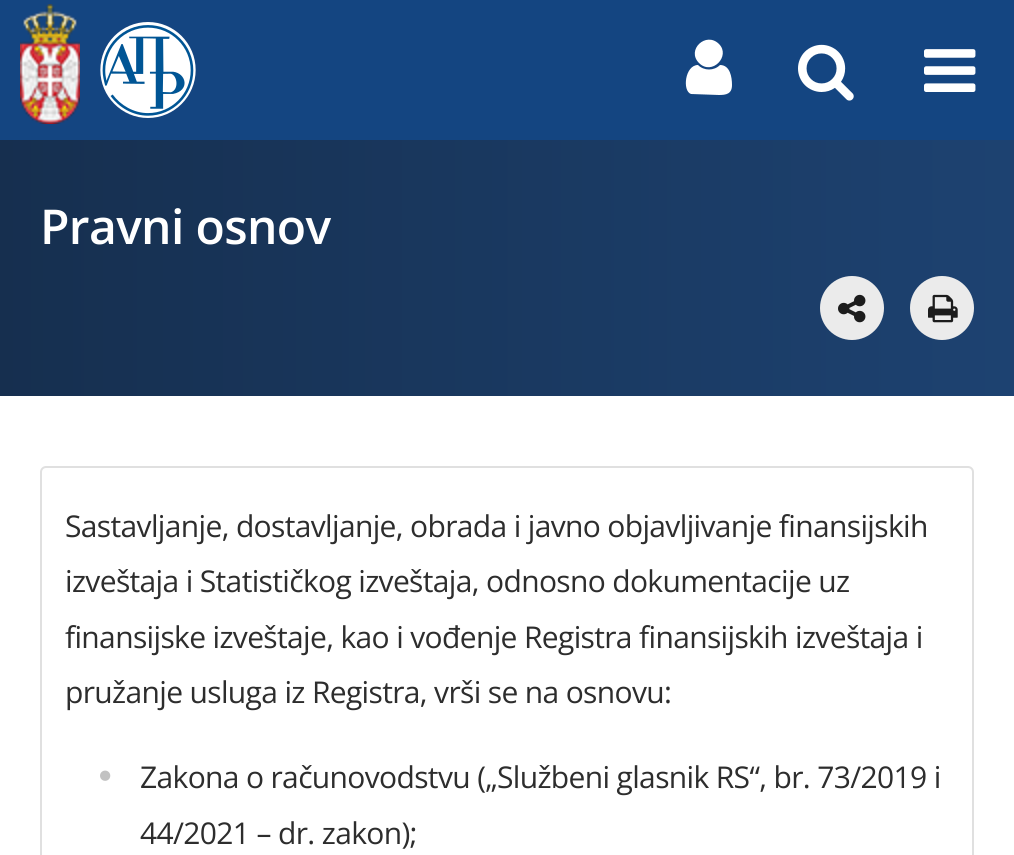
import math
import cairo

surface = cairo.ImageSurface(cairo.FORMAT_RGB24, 1014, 855)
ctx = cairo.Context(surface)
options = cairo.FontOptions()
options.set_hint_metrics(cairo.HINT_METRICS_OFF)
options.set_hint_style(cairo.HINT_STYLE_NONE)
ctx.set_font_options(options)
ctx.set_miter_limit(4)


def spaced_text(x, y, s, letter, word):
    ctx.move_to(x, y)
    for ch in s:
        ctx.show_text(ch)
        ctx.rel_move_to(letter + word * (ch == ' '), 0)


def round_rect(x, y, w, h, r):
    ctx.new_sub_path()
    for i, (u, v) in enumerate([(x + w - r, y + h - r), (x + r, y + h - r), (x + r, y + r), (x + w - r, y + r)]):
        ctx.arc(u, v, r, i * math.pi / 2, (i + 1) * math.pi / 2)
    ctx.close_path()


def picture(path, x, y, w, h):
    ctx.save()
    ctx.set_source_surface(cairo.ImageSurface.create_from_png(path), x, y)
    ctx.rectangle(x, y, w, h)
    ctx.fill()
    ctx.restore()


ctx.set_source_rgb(1, 1, 1)
ctx.paint()
ctx.set_source_rgb(0.082, 0.271, 0.506)
ctx.rectangle(0, 0, 1014, 140)
ctx.fill()
picture("img1.png", 20, 4, 60, 120)
picture("img2.png", 100, 22, 96, 96)
ctx.set_source_rgb(1, 1, 1)
ctx.new_path()
ctx.move_to(732, 85)
ctx.curve_to(732, 94, 726, 95, 719, 95)
ctx.line_to(691, 94)
ctx.curve_to(682, 91, 685, 65, 698, 65)
ctx.curve_to(704, 71, 714, 71, 720, 65)
ctx.curve_to(730, 65, 732, 77, 732, 85)
ctx.close_path()
ctx.move_to(719, 44)
ctx.curve_to(731, 56, 712, 76, 699, 63)
ctx.curve_to(686, 50, 706, 31, 719, 44)
ctx.close_path()
ctx.fill()
picture("img3.png", 798, 44, 56, 57)
picture("img4.png", 924, 49, 52, 43)
gradient = cairo.LinearGradient(0, 268, 1014, 268)
gradient.add_color_stop_rgba(0, 0.086, 0.184, 0.31, 1)
gradient.add_color_stop_rgba(1, 0.114, 0.259, 0.443, 1)
ctx.set_source(gradient)
ctx.rectangle(0, 140, 1014, 256)
ctx.fill()
ctx.select_font_face("Open Sans SemiBold")
ctx.set_font_size(48)
ctx.set_source_rgb(1, 1, 1)
spaced_text(40, 244, "Pravni osnov", -0.65, 0)
ctx.set_source_rgb(0.918, 0.918, 0.918)
ctx.new_path()
ctx.arc(852, 308, 32, 0, 2 * math.pi)
ctx.fill()
picture("img5.png", 838, 294, 28, 29)
ctx.arc(942, 308, 32, 0, 2 * math.pi)
ctx.fill()
picture("img6.png", 928, 294, 30, 29)
round_rect(41, 467, 932, 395, 5)
ctx.set_source_rgb(0.878, 0.878, 0.878)
ctx.stroke()
ctx.select_font_face("Open Sans")
ctx.set_font_size(30)
ctx.set_source_rgb(0.176, 0.176, 0.176)
spaced_text(65, 537, "Sastavlјanje, dostavlјanje, obrada i javno objavlјivanje finansijskih", -0.65, 0)
spaced_text(65, 592, "izveštaja i Statističkog izveštaja, odnosno dokumentacije uz", -0.65, 0)
spaced_text(65, 648, "finansijske izveštaje, kao i vođenje Registra finansijskih izveštaja i", -0.65, 0)
spaced_text(65, 703, "pružanje usluga iz Registra, vrši se na osnovu:", -0.65, 0)
picture("img7.png", 100, 770, 11, 11)
spaced_text(140, 788, "Zakona o računovodstvu („Službeni glasnik RS“, br. 73/2019 i", -0.65, 0)
spaced_text(140, 844, "44/2021 – dr. zakon);", -0.65, 0)
surface.write_to_png("page.png")
